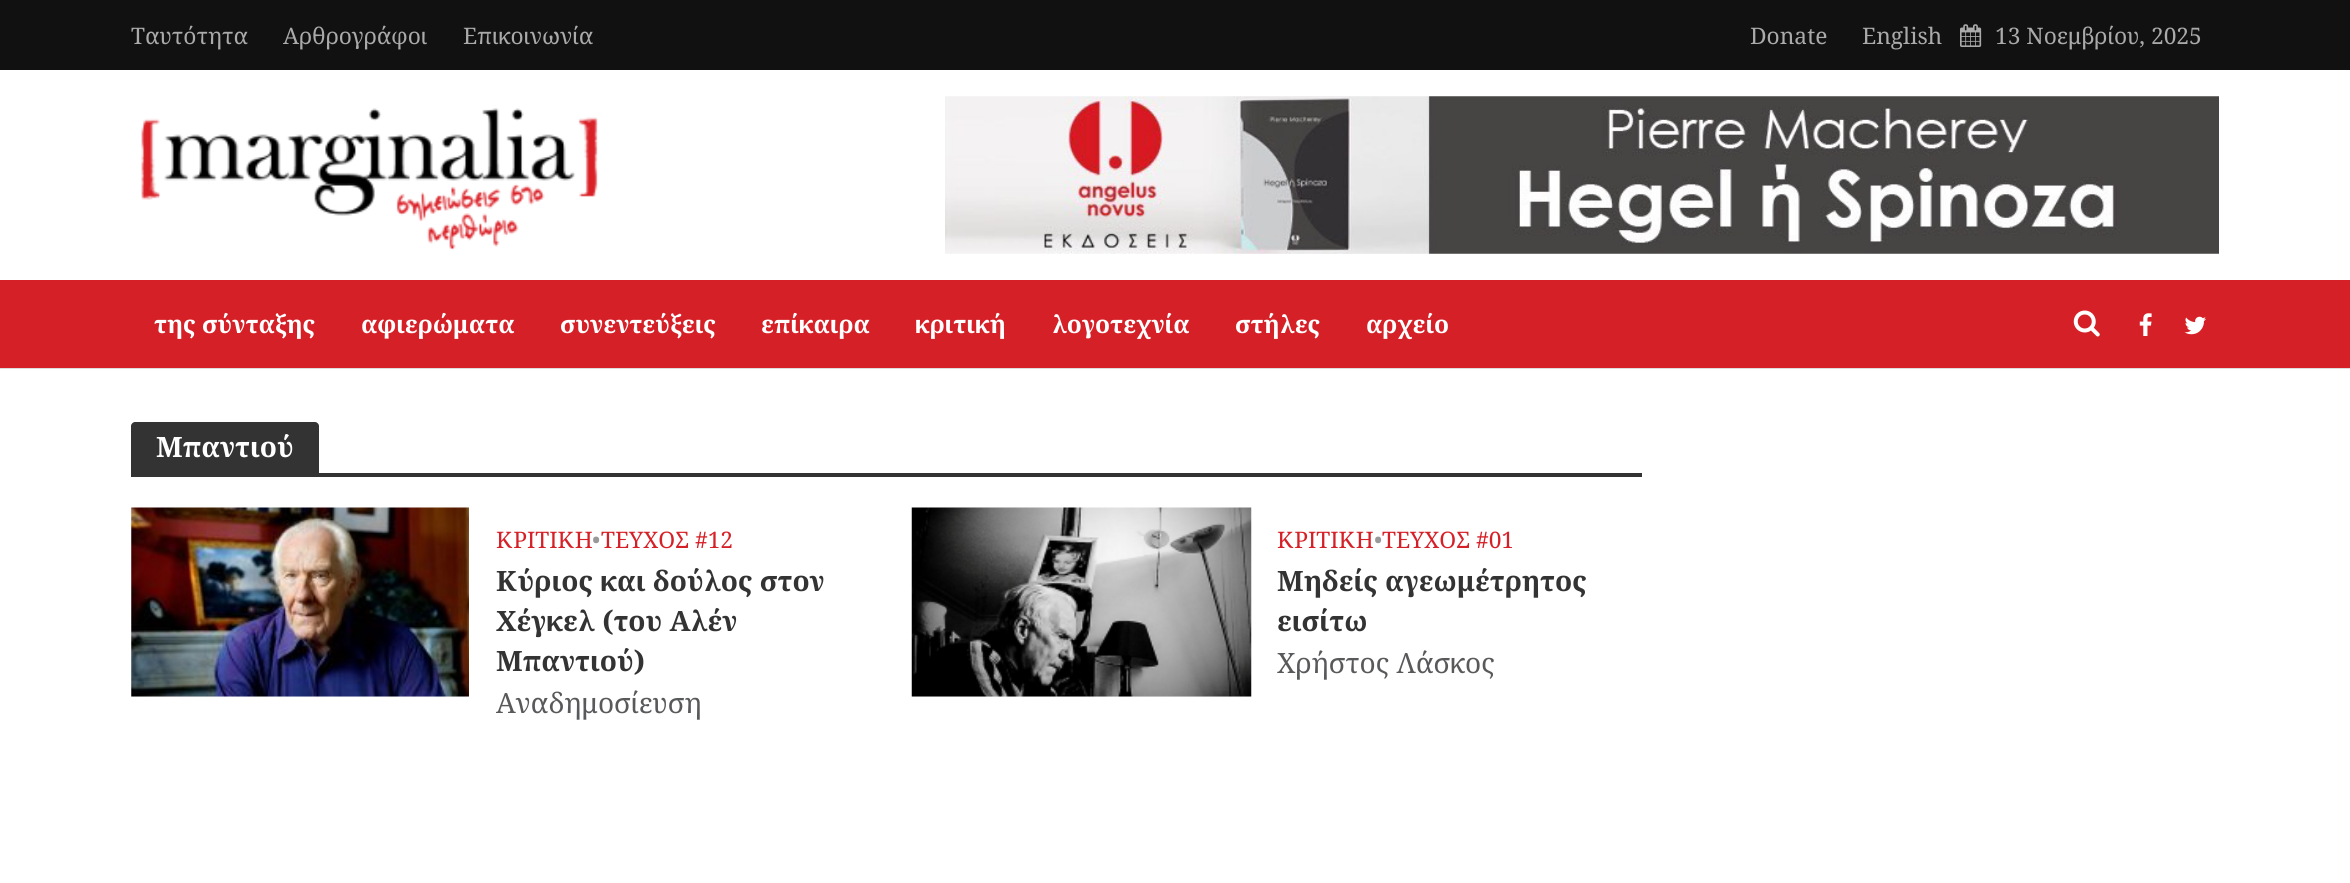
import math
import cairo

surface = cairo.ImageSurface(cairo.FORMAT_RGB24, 2350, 883)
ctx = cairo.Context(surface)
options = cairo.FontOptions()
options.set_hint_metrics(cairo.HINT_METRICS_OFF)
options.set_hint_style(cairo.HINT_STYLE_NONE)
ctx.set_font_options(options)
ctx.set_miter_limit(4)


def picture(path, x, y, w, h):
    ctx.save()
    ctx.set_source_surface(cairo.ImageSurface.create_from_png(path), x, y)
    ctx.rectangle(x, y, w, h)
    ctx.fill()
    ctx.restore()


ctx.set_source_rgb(1, 1, 1)
ctx.paint()
ctx.set_source_rgb(0.067, 0.067, 0.067)
ctx.rectangle(0, 0, 2350, 70)
ctx.fill()
ctx.select_font_face("Noto Serif")
ctx.set_font_size(22.75)
ctx.set_source_rgb(0.667, 0.667, 0.667)
ctx.move_to(131, 44)
ctx.show_text("Ταυτότητα")
ctx.move_to(283, 44)
ctx.show_text("Αρθρογράφοι")
ctx.move_to(463, 44)
ctx.show_text("Επικοινωνία")
ctx.move_to(1750, 44)
ctx.show_text("Donate")
ctx.move_to(1862, 44)
ctx.show_text("English")
picture("img1.png", 1960, 24, 22, 23)
ctx.move_to(1995, 44)
ctx.show_text("13 Νοεμβρίου, 2025")
picture("img2.png", 141, 108, 457, 142)
picture("img3.png", 945, 96, 1274, 158)
ctx.set_source_rgb(0.839, 0.125, 0.153)
ctx.rectangle(0, 280, 2350, 88)
ctx.fill()
ctx.select_font_face("Noto Serif", cairo.FONT_SLANT_NORMAL, cairo.FONT_WEIGHT_BOLD)
ctx.set_font_size(24.5)
ctx.set_source_rgb(1, 1, 1)
ctx.move_to(154, 333)
ctx.show_text("της σύνταξης")
ctx.move_to(361, 333)
ctx.show_text("αφιερώματα")
ctx.move_to(560, 333)
ctx.show_text("συνεντεύξεις")
ctx.move_to(761, 333)
ctx.show_text("επίκαιρα")
ctx.move_to(915, 333)
ctx.show_text("κριτική")
ctx.move_to(1052, 333)
ctx.show_text("λογοτεχνία")
ctx.move_to(1235, 333)
ctx.show_text("στήλες")
ctx.move_to(1366, 333)
ctx.show_text("αρχείο")
picture("img4.png", 2073, 310, 27, 27)
picture("img5.png", 2139, 313, 13, 23)
picture("img6.png", 2184, 316, 22, 19)
ctx.rectangle(-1, 369, 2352, 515)
ctx.set_source_rgb(0.867, 0.867, 0.867)
ctx.stroke()
ctx.set_source_rgb(1, 1, 1)
ctx.rectangle(0, 369, 2350, 1)
ctx.fill()
ctx.set_source_rgb(0.2, 0.2, 0.2)
ctx.new_path()
ctx.move_to(135, 422)
ctx.line_to(315, 422)
ctx.curve_to(317, 422, 319, 424, 319, 426)
ctx.line_to(319, 473)
ctx.line_to(131, 473)
ctx.line_to(131, 426)
ctx.curve_to(131, 424, 133, 422, 135, 422)
ctx.close_path()
ctx.fill()
ctx.set_font_size(28)
ctx.set_source_rgb(1, 1, 1)
ctx.move_to(156, 457)
ctx.show_text("Μπαντιού")
ctx.set_source_rgb(0.2, 0.2, 0.2)
ctx.rectangle(131, 473, 1511, 4)
ctx.fill()
ctx.set_source_rgb(0.949, 0.949, 0.949)
ctx.rectangle(131, 508, 338, 189)
ctx.fill()
picture("img7.png", 131, 507, 338, 190)
ctx.select_font_face("Noto Serif")
ctx.set_font_size(22.75)
ctx.set_source_rgb(0.839, 0.125, 0.153)
ctx.move_to(496, 548)
ctx.show_text("ΚΡΙΤΙΚΗ")
ctx.set_source_rgb(0.6, 0.6, 0.6)
ctx.move_to(592, 548)
ctx.show_text("•")
ctx.set_source_rgb(0.839, 0.125, 0.153)
ctx.move_to(601, 548)
ctx.show_text("ΤΕΥΧΟΣ #12")
ctx.select_font_face("Noto Serif", cairo.FONT_SLANT_NORMAL, cairo.FONT_WEIGHT_BOLD)
ctx.set_font_size(28)
ctx.set_source_rgb(0.2, 0.2, 0.2)
ctx.move_to(496, 591)
ctx.show_text("Κύριος και δούλος στον")
ctx.move_to(496, 631)
ctx.show_text("Χέγκελ (του Αλέν")
ctx.move_to(496, 671)
ctx.show_text("Μπαντιού)")
ctx.select_font_face("Noto Serif")
ctx.set_source_rgb(0.345, 0.349, 0.357)
ctx.move_to(496, 713)
ctx.show_text("Αναδημοσίευση")
ctx.set_source_rgb(0.949, 0.949, 0.949)
ctx.rectangle(912, 696, 339, 1)
ctx.fill()
picture("img8.png", 911, 507, 341, 190)
ctx.set_font_size(22.75)
ctx.set_source_rgb(0.839, 0.125, 0.153)
ctx.move_to(1277, 548)
ctx.show_text("ΚΡΙΤΙΚΗ")
ctx.set_source_rgb(0.6, 0.6, 0.6)
ctx.move_to(1374, 548)
ctx.show_text("•")
ctx.set_source_rgb(0.839, 0.125, 0.153)
ctx.move_to(1382, 548)
ctx.show_text("ΤΕΥΧΟΣ #01")
ctx.select_font_face("Noto Serif", cairo.FONT_SLANT_NORMAL, cairo.FONT_WEIGHT_BOLD)
ctx.set_font_size(28)
ctx.set_source_rgb(0.2, 0.2, 0.2)
ctx.move_to(1277, 591)
ctx.show_text("Μηδείς αγεωμέτρητος")
ctx.move_to(1277, 631)
ctx.show_text("εισίτω")
ctx.select_font_face("Noto Serif")
ctx.set_source_rgb(0.345, 0.349, 0.357)
ctx.move_to(1277, 673)
ctx.show_text("Χρήστος Λάσκος")
surface.write_to_png("page.png")
